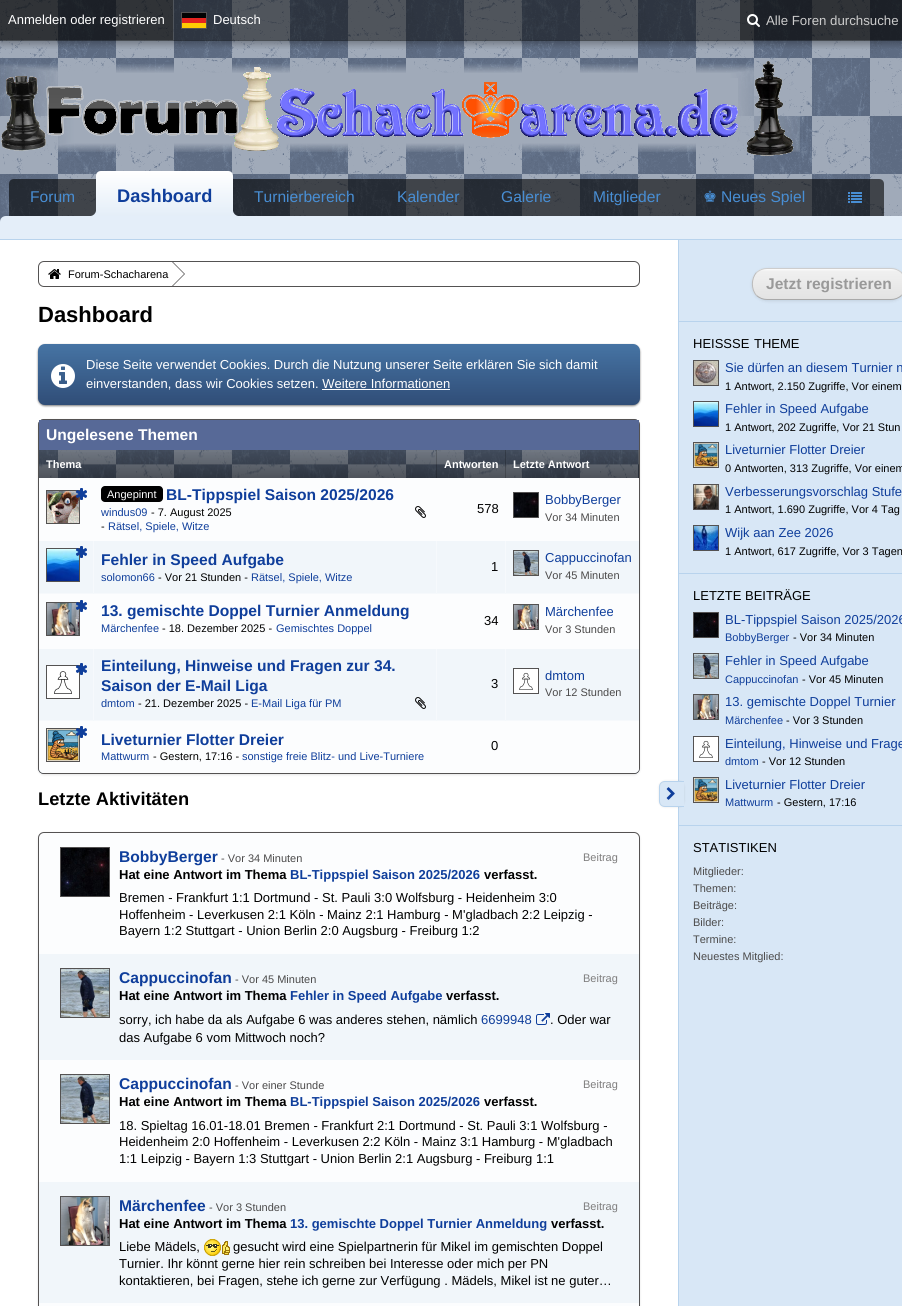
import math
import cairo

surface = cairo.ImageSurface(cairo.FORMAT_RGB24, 902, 1306)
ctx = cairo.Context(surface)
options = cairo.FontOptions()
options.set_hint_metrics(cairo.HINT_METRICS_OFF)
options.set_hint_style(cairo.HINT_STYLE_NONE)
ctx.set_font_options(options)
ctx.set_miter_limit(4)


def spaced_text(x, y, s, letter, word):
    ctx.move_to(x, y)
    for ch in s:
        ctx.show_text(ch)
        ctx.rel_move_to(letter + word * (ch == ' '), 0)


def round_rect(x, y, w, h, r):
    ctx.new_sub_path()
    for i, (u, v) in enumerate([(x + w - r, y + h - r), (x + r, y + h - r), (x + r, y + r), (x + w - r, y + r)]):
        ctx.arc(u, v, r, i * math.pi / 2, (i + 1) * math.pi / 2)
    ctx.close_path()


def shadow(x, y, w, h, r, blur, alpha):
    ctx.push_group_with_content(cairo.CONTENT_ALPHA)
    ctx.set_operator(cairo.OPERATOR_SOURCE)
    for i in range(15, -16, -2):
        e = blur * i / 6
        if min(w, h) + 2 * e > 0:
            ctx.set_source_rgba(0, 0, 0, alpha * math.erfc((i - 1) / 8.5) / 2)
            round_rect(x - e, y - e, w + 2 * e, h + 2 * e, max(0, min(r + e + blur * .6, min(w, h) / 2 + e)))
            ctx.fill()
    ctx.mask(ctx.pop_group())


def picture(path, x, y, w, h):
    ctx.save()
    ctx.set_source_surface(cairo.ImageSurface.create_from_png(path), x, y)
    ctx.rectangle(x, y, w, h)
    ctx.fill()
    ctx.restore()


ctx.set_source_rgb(1, 1, 1)
ctx.paint()
picture("img1.png", 0, 0, 902, 222)
ctx.save()
ctx.rectangle(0, 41, 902, 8)
ctx.clip()
ctx.set_source_rgb(0, 0, 0)
shadow(0, 3, 902, 41, 0, 3.5, 0.3)
ctx.restore()
ctx.set_source_rgba(0, 0, 0, 0.5)
ctx.rectangle(0, 0, 902, 41)
ctx.fill()
ctx.set_source_rgba(0, 0, 0, 0.1)
ctx.rectangle(0, 40, 902, 1)
ctx.fill()
ctx.set_source_rgba(0, 0, 0, 0.4)
ctx.rectangle(0, 0, 173, 40)
ctx.fill()
ctx.select_font_face("Liberation Sans")
ctx.set_font_size(13)
ctx.set_source_rgb(1, 1, 1)
ctx.move_to(8, 24)
ctx.show_text("Anmelden oder registrieren")
ctx.rectangle(181.5, 12.5, 25, 16)
ctx.set_source_rgb(0.329, 0.322, 0.322)
ctx.set_line_width(1)
ctx.stroke()
ctx.set_source_rgb(0.004, 0.008, 0.008)
ctx.rectangle(182, 13, 24, 5)
ctx.fill()
ctx.set_source_rgb(0.898, 0.141, 0.125)
ctx.rectangle(182, 18, 24, 5)
ctx.fill()
ctx.set_source_rgb(1, 0.8, 0.016)
ctx.rectangle(182, 23, 24, 5)
ctx.fill()
ctx.set_source_rgb(1, 1, 1)
ctx.move_to(213, 24)
ctx.show_text("Deutsch")
ctx.set_source_rgba(0, 0, 0, 0.4)
ctx.rectangle(740, 0, 162, 40)
ctx.fill()
picture("img2.png", 747, 14, 13, 13)
ctx.set_font_size(13.25)
ctx.set_source_rgb(0.8, 0.8, 0.8)
ctx.move_to(766, 25)
ctx.show_text("Alle Foren durchsuche")
picture("img3.png", 0, 61, 800, 95)
ctx.set_source_rgba(0, 0, 0, 0.6)
ctx.new_path()
ctx.move_to(14, 179)
ctx.line_to(879, 179)
ctx.curve_to(882, 179, 884, 181, 884, 184)
ctx.line_to(884, 216)
ctx.line_to(9, 216)
ctx.line_to(9, 184)
ctx.curve_to(9, 181, 11, 179, 14, 179)
ctx.close_path()
ctx.fill()
ctx.set_font_size(15.6)
ctx.set_source_rgb(0.282, 0.557, 0.831)
ctx.move_to(30, 202)
ctx.show_text("Forum")
gradient = cairo.LinearGradient(165, 171, 165, 216)
gradient.add_color_stop_rgba(0, 1, 1, 1, 1)
gradient.add_color_stop_rgba(1, 0.894, 0.933, 0.973, 1)
ctx.set_source(gradient)
ctx.new_path()
ctx.move_to(101, 171)
ctx.line_to(228, 171)
ctx.curve_to(231, 171, 233, 173, 233, 176)
ctx.line_to(233, 216)
ctx.line_to(96, 216)
ctx.line_to(96, 176)
ctx.curve_to(96, 173, 98, 171, 101, 171)
ctx.close_path()
ctx.fill()
ctx.select_font_face("Liberation Sans", cairo.FONT_SLANT_NORMAL, cairo.FONT_WEIGHT_BOLD)
ctx.set_font_size(18.25)
ctx.set_source_rgb(0.059, 0.243, 0.608)
ctx.move_to(117, 202)
ctx.show_text("Dashboard")
ctx.set_source_rgb(0.894, 0.933, 0.973)
ctx.new_path()
ctx.move_to(6, 216)
ctx.line_to(902, 216)
ctx.curve_to(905.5, 216, 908, 218.5, 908, 222)
ctx.line_to(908, 240)
ctx.line_to(0, 240)
ctx.line_to(0, 222)
ctx.curve_to(0, 218.5, 2.5, 216, 6, 216)
ctx.close_path()
ctx.fill()
ctx.new_path()
ctx.move_to(91, 216)
ctx.line_to(91, 218)
ctx.curve_to(95.5, 218, 98, 215.5, 98, 211)
ctx.line_to(96, 211)
ctx.curve_to(95.5, 213.5, 93.5, 215.5, 91, 216)
ctx.close_path()
ctx.fill()
ctx.new_path()
ctx.move_to(231, 211)
ctx.curve_to(231, 215.5, 233.5, 218, 238, 218)
ctx.line_to(238, 216)
ctx.curve_to(235.5, 215.5, 233.5, 213.5, 233, 211)
ctx.close_path()
ctx.fill()
ctx.select_font_face("Liberation Sans")
ctx.set_font_size(15.6)
ctx.set_source_rgb(0.282, 0.557, 0.831)
ctx.move_to(254, 202)
ctx.show_text("Turnierbereich")
ctx.move_to(397, 202)
ctx.show_text("Kalender")
ctx.move_to(501, 202)
ctx.show_text("Galerie")
ctx.move_to(593, 202)
ctx.show_text("Mitglieder")
ctx.select_font_face("DejaVu Sans")
ctx.move_to(703, 202)
ctx.show_text("♚")
ctx.select_font_face("Liberation Sans")
ctx.move_to(721, 202)
ctx.show_text("Neues Spiel")
picture("img4.png", 848, 192, 14, 11)
ctx.set_source_rgb(0.722, 0.827, 0.929)
ctx.rectangle(0, 239, 902, 1)
ctx.fill()
ctx.set_source_rgb(0.847, 0.906, 0.961)
ctx.rectangle(679, 240, 223, 1066)
ctx.fill()
round_rect(38.5, 261.5, 601, 25, 5.5)
ctx.set_source_rgb(0.329, 0.322, 0.322)
ctx.stroke()
picture("img5.png", 48, 269, 13, 10)
ctx.set_font_size(11)
ctx.set_source_rgb(0, 0, 0)
ctx.move_to(68, 278)
ctx.show_text("Forum-Schacharena")
ctx.set_source_rgb(0.329, 0.322, 0.322)
ctx.new_path()
ctx.move_to(173, 262)
ctx.line_to(185, 274)
ctx.line_to(173, 286)
ctx.line_to(170, 286)
ctx.line_to(170, 262)
ctx.close_path()
ctx.fill()
ctx.set_source_rgb(1, 1, 1)
ctx.new_path()
ctx.move_to(172, 262)
ctx.line_to(184, 274)
ctx.line_to(172, 286)
ctx.line_to(169, 286)
ctx.line_to(169, 262)
ctx.close_path()
ctx.fill()
ctx.select_font_face("Liberation Sans", cairo.FONT_SLANT_NORMAL, cairo.FONT_WEIGHT_BOLD)
ctx.set_font_size(22)
ctx.set_source_rgb(0, 0, 0)
ctx.move_to(38, 322)
ctx.show_text("Dashboard")
ctx.set_source_rgb(0, 0, 0)
shadow(38, 345, 602, 61, 7, 1, 0.5)
gradient = cairo.LinearGradient(339, 344, 339, 405)
gradient.add_color_stop_rgba(0, 0.275, 0.455, 0.643, 1)
gradient.add_color_stop_rgba(1, 0.188, 0.302, 0.467, 1)
ctx.set_source(gradient)
round_rect(38, 344, 602, 61, 7)
ctx.fill()
picture("img6.png", 51, 364, 24, 24)
ctx.select_font_face("Liberation Sans")
ctx.set_font_size(13)
ctx.set_source_rgb(1, 1, 1)
ctx.move_to(86, 369)
ctx.show_text("Diese Seite verwendet Cookies. Durch die Nutzung unserer Seite erklären Sie sich damit")
ctx.move_to(86, 388)
ctx.show_text("einverstanden, dass wir Cookies setzen. Weitere Informationen")
ctx.rectangle(322, 389, 128, 1)
ctx.fill()
ctx.set_source_rgb(0, 0, 0)
shadow(38, 420, 602, 355, 6, 1, 0.1)
picture("img7.png", 38, 419, 602, 355)
round_rect(38.5, 419.5, 601, 354, 5.5)
ctx.set_source_rgb(0.329, 0.322, 0.322)
ctx.stroke()
ctx.set_source_rgb(0.341, 0.412, 0.592)
ctx.rectangle(39, 420, 600, 30)
ctx.fill()
ctx.select_font_face("Liberation Sans", cairo.FONT_SLANT_NORMAL, cairo.FONT_WEIGHT_BOLD)
ctx.set_font_size(15.6)
ctx.set_source_rgb(1, 1, 1)
ctx.move_to(46, 440)
ctx.show_text("Ungelesene Themen")
ctx.set_source_rgba(0, 0, 0, 0.3)
ctx.rectangle(39, 450, 398, 28)
ctx.fill()
gradient = cairo.LinearGradient(238, 450, 238, 478)
gradient.add_color_stop_rgba(0, 0, 0, 0, 0)
gradient.add_color_stop_rgba(1, 0, 0, 0, 0.3)
ctx.set_source(gradient)
ctx.rectangle(39, 452, 398, 26)
ctx.fill()
ctx.set_source_rgba(0, 0, 0, 0.2)
ctx.rectangle(436, 450, 1, 28)
ctx.fill()
ctx.set_font_size(11)
ctx.set_source_rgb(1, 1, 1)
ctx.move_to(46, 468)
ctx.show_text("Thema")
ctx.set_source_rgba(0, 0, 0, 0.3)
ctx.rectangle(437, 450, 69, 28)
ctx.fill()
gradient = cairo.LinearGradient(471, 450, 471, 478)
gradient.add_color_stop_rgba(0, 0, 0, 0, 0)
gradient.add_color_stop_rgba(1, 0, 0, 0, 0.3)
ctx.set_source(gradient)
ctx.rectangle(437, 452, 69, 26)
ctx.fill()
ctx.set_source_rgba(0, 0, 0, 0.2)
ctx.rectangle(505, 450, 1, 28)
ctx.fill()
ctx.set_source_rgb(1, 1, 1)
ctx.move_to(444, 468)
ctx.show_text("Antworten")
ctx.set_source_rgba(0, 0, 0, 0.3)
ctx.rectangle(506, 450, 133, 28)
ctx.fill()
gradient = cairo.LinearGradient(572, 450, 572, 478)
gradient.add_color_stop_rgba(0, 0, 0, 0, 0)
gradient.add_color_stop_rgba(1, 0, 0, 0, 0.3)
ctx.set_source(gradient)
ctx.rectangle(506, 452, 133, 26)
ctx.fill()
ctx.set_source_rgba(0, 0, 0, 0.2)
ctx.rectangle(638, 450, 1, 28)
ctx.fill()
ctx.set_source_rgb(1, 1, 1)
ctx.move_to(513, 468)
ctx.show_text("Letzte Antwort")
ctx.set_source_rgb(0.988, 0.992, 0.996)
ctx.rectangle(39, 478, 600, 63)
ctx.fill()
ctx.rectangle(46.5, 490.5, 33, 33)
ctx.set_source_rgb(0.329, 0.322, 0.322)
ctx.stroke()
picture("img8.png", 47, 491, 32, 32)
picture("img9.png", 76, 488, 11, 12)
ctx.set_source_rgb(0, 0, 0)
round_rect(101, 486, 62, 16, 4)
ctx.fill()
ctx.select_font_face("Liberation Sans")
ctx.set_source_rgb(1, 1, 1)
ctx.move_to(107, 498)
ctx.show_text("Angepinnt")
ctx.select_font_face("Liberation Sans", cairo.FONT_SLANT_NORMAL, cairo.FONT_WEIGHT_BOLD)
ctx.set_font_size(15.6)
ctx.set_source_rgb(0.059, 0.243, 0.608)
ctx.move_to(166, 500)
ctx.show_text("BL-Tippspiel Saison 2025/2026")
ctx.select_font_face("Liberation Sans")
ctx.set_font_size(11)
ctx.move_to(101, 516)
ctx.show_text("windus09")
ctx.set_source_rgb(0, 0, 0)
ctx.move_to(151, 516)
ctx.show_text("- 7. August 2025")
ctx.move_to(101, 530)
ctx.show_text("-")
ctx.set_source_rgb(0.059, 0.243, 0.608)
ctx.move_to(108, 530)
ctx.show_text("Rätsel, Spiele, Witze")
picture("img10.png", 415, 506, 11, 12)
ctx.set_font_size(13)
ctx.set_source_rgb(0, 0, 0)
ctx.move_to(477, 513)
ctx.show_text("578")
ctx.rectangle(513.5, 492.5, 25, 25)
ctx.set_source_rgb(0.329, 0.322, 0.322)
ctx.stroke()
picture("img11.png", 514, 493, 24, 24)
ctx.set_source_rgb(0.059, 0.243, 0.608)
ctx.move_to(545, 504)
ctx.show_text("BobbyBerger")
ctx.set_font_size(11)
ctx.set_source_rgb(0.294, 0.29, 0.29)
ctx.move_to(545, 521)
ctx.show_text("Vor 34 Minuten")
ctx.set_source_rgb(0.945, 0.961, 0.98)
ctx.rectangle(39, 541, 467, 53)
ctx.fill()
ctx.set_source_rgb(0.961, 0.973, 0.988)
ctx.new_path()
ctx.move_to(94, 541)
ctx.line_to(94, 594)
ctx.line_to(93, 593)
ctx.line_to(93, 541)
ctx.close_path()
ctx.fill()
ctx.new_path()
ctx.move_to(94, 594)
ctx.line_to(39, 594)
ctx.line_to(39, 593)
ctx.line_to(93, 593)
ctx.close_path()
ctx.fill()
ctx.rectangle(46.5, 548.5, 33, 33)
ctx.set_source_rgb(0.329, 0.322, 0.322)
ctx.stroke()
picture("img12.png", 47, 549, 32, 32)
picture("img13.png", 75, 546, 12, 12)
ctx.set_source_rgb(0.945, 0.961, 0.98)
ctx.rectangle(506, 541, 133, 52)
ctx.fill()
ctx.set_source_rgb(0.961, 0.973, 0.988)
ctx.rectangle(506, 593, 133, 1)
ctx.fill()
ctx.rectangle(513.5, 550.5, 25, 25)
ctx.set_source_rgb(0.329, 0.322, 0.322)
ctx.stroke()
picture("img14.png", 514, 551, 24, 24)
ctx.set_font_size(13)
ctx.set_source_rgb(0.059, 0.243, 0.608)
ctx.move_to(545, 562)
ctx.show_text("Cappuccinofan")
ctx.set_font_size(11)
ctx.set_source_rgb(0.294, 0.29, 0.29)
ctx.move_to(545, 579)
ctx.show_text("Vor 45 Minuten")
ctx.set_source_rgb(0.961, 0.973, 0.988)
ctx.new_path()
ctx.move_to(437, 541)
ctx.line_to(437, 594)
ctx.line_to(436, 593)
ctx.line_to(436, 541)
ctx.close_path()
ctx.fill()
ctx.new_path()
ctx.move_to(437, 594)
ctx.line_to(94, 594)
ctx.line_to(94, 593)
ctx.line_to(436, 593)
ctx.close_path()
ctx.fill()
ctx.select_font_face("Liberation Sans", cairo.FONT_SLANT_NORMAL, cairo.FONT_WEIGHT_BOLD)
ctx.set_font_size(15.6)
ctx.set_source_rgb(0.059, 0.243, 0.608)
ctx.move_to(101, 565)
ctx.show_text("Fehler in Speed Aufgabe")
ctx.select_font_face("Liberation Sans")
ctx.set_font_size(11)
ctx.move_to(101, 581)
ctx.show_text("solomon66")
ctx.set_source_rgb(0, 0, 0)
ctx.move_to(158, 581)
ctx.show_text("- Vor 21 Stunden -")
ctx.set_source_rgb(0.059, 0.243, 0.608)
ctx.move_to(251, 581)
ctx.show_text("Rätsel, Spiele, Witze")
ctx.set_source_rgb(0.961, 0.973, 0.988)
ctx.new_path()
ctx.move_to(506, 541)
ctx.line_to(506, 594)
ctx.line_to(505, 593)
ctx.line_to(505, 541)
ctx.close_path()
ctx.fill()
ctx.new_path()
ctx.move_to(506, 594)
ctx.line_to(437, 594)
ctx.line_to(437, 593)
ctx.line_to(505, 593)
ctx.close_path()
ctx.fill()
ctx.set_font_size(13)
ctx.set_source_rgb(0, 0, 0)
ctx.move_to(491, 571)
ctx.show_text("1")
ctx.set_source_rgb(0.988, 0.992, 0.996)
ctx.rectangle(39, 594, 600, 55)
ctx.fill()
ctx.rectangle(46.5, 602.5, 33, 33)
ctx.set_source_rgb(0.329, 0.322, 0.322)
ctx.stroke()
picture("img15.png", 47, 603, 32, 32)
picture("img16.png", 76, 600, 11, 12)
ctx.select_font_face("Liberation Sans", cairo.FONT_SLANT_NORMAL, cairo.FONT_WEIGHT_BOLD)
ctx.set_font_size(15.6)
ctx.set_source_rgb(0.059, 0.243, 0.608)
ctx.move_to(101, 616)
ctx.show_text("13. gemischte Doppel Turnier Anmeldung")
ctx.select_font_face("Liberation Sans")
ctx.set_font_size(11)
ctx.move_to(101, 632)
ctx.show_text("Märchenfee")
ctx.set_source_rgb(0, 0, 0)
ctx.move_to(162, 632)
ctx.show_text("- 18. Dezember 2025 -")
ctx.set_source_rgb(0.059, 0.243, 0.608)
ctx.move_to(276, 632)
ctx.show_text("Gemischtes Doppel")
ctx.set_font_size(13)
ctx.set_source_rgb(0, 0, 0)
ctx.move_to(484, 625)
ctx.show_text("34")
ctx.rectangle(513.5, 604.5, 25, 25)
ctx.set_source_rgb(0.329, 0.322, 0.322)
ctx.stroke()
picture("img17.png", 514, 605, 24, 24)
ctx.set_source_rgb(0.059, 0.243, 0.608)
ctx.move_to(545, 616)
ctx.show_text("Märchenfee")
ctx.set_font_size(11)
ctx.set_source_rgb(0.294, 0.29, 0.29)
ctx.move_to(545, 633)
ctx.show_text("Vor 3 Stunden")
ctx.set_source_rgb(0.945, 0.961, 0.98)
ctx.rectangle(39, 649, 467, 72)
ctx.fill()
ctx.set_source_rgb(0.961, 0.973, 0.988)
ctx.new_path()
ctx.move_to(94, 649)
ctx.line_to(94, 721)
ctx.line_to(93, 720)
ctx.line_to(93, 649)
ctx.close_path()
ctx.fill()
ctx.new_path()
ctx.move_to(94, 721)
ctx.line_to(39, 721)
ctx.line_to(39, 720)
ctx.line_to(93, 720)
ctx.close_path()
ctx.fill()
ctx.set_source_rgb(1, 1, 1)
ctx.rectangle(46.5, 665.5, 33, 33)
ctx.fill_preserve()
ctx.set_source_rgb(0.329, 0.322, 0.322)
ctx.stroke()
picture("img18.png", 54, 671, 18, 23)
picture("img19.png", 75, 663, 12, 12)
ctx.set_source_rgb(0.961, 0.973, 0.988)
ctx.new_path()
ctx.move_to(437, 649)
ctx.line_to(437, 721)
ctx.line_to(436, 720)
ctx.line_to(436, 649)
ctx.close_path()
ctx.fill()
ctx.new_path()
ctx.move_to(437, 721)
ctx.line_to(94, 721)
ctx.line_to(94, 720)
ctx.line_to(436, 720)
ctx.close_path()
ctx.fill()
ctx.select_font_face("Liberation Sans", cairo.FONT_SLANT_NORMAL, cairo.FONT_WEIGHT_BOLD)
ctx.set_font_size(15.6)
ctx.set_source_rgb(0.059, 0.243, 0.608)
ctx.move_to(101, 671)
ctx.show_text("Einteilung, Hinweise und Fragen zur 34.")
ctx.move_to(101, 691)
ctx.show_text("Saison der E-Mail Liga")
ctx.select_font_face("Liberation Sans")
ctx.set_font_size(11)
ctx.move_to(101, 707)
ctx.show_text("dmtom")
ctx.set_source_rgb(0, 0, 0)
ctx.move_to(138, 707)
ctx.show_text("- 21. Dezember 2025 -")
ctx.set_source_rgb(0.059, 0.243, 0.608)
ctx.move_to(251, 707)
ctx.show_text("E-Mail Liga für PM")
picture("img20.png", 415, 697, 11, 12)
ctx.set_source_rgb(0.961, 0.973, 0.988)
ctx.new_path()
ctx.move_to(506, 649)
ctx.line_to(506, 721)
ctx.line_to(505, 720)
ctx.line_to(505, 649)
ctx.close_path()
ctx.fill()
ctx.new_path()
ctx.move_to(506, 721)
ctx.line_to(437, 721)
ctx.line_to(437, 720)
ctx.line_to(505, 720)
ctx.close_path()
ctx.fill()
ctx.set_font_size(13)
ctx.set_source_rgb(0, 0, 0)
ctx.move_to(491, 688)
ctx.show_text("3")
ctx.set_source_rgb(0.945, 0.961, 0.98)
ctx.rectangle(506, 649, 133, 71)
ctx.fill()
ctx.set_source_rgb(0.961, 0.973, 0.988)
ctx.rectangle(506, 720, 133, 1)
ctx.fill()
ctx.set_source_rgb(1, 1, 1)
ctx.rectangle(513.5, 668.5, 25, 25)
ctx.fill_preserve()
ctx.set_source_rgb(0.329, 0.322, 0.322)
ctx.stroke()
picture("img21.png", 519, 672, 14, 18)
ctx.set_source_rgb(0.059, 0.243, 0.608)
ctx.move_to(545, 680)
ctx.show_text("dmtom")
ctx.set_font_size(11)
ctx.set_source_rgb(0.294, 0.29, 0.29)
ctx.move_to(545, 696)
ctx.show_text("Vor 12 Stunden")
ctx.set_source_rgb(0.988, 0.992, 0.996)
ctx.new_path()
ctx.move_to(39, 721)
ctx.line_to(94, 721)
ctx.line_to(94, 773)
ctx.line_to(43, 773)
ctx.curve_to(41, 773, 39, 771, 39, 769)
ctx.close_path()
ctx.fill()
ctx.rectangle(46.5, 728.5, 33, 33)
ctx.set_source_rgb(0.329, 0.322, 0.322)
ctx.stroke()
picture("img22.png", 47, 729, 32, 32)
picture("img23.png", 75, 726, 12, 12)
ctx.set_source_rgb(0.988, 0.992, 0.996)
ctx.rectangle(94, 721, 412, 52)
ctx.fill()
ctx.select_font_face("Liberation Sans", cairo.FONT_SLANT_NORMAL, cairo.FONT_WEIGHT_BOLD)
ctx.set_font_size(15.6)
ctx.set_source_rgb(0.059, 0.243, 0.608)
ctx.move_to(101, 745)
ctx.show_text("Liveturnier Flotter Dreier")
ctx.select_font_face("Liberation Sans")
ctx.set_font_size(11)
ctx.move_to(101, 760)
ctx.show_text("Mattwurm")
ctx.set_source_rgb(0, 0, 0)
ctx.move_to(153, 760)
ctx.show_text("- Gestern, 17:16 -")
ctx.set_source_rgb(0.059, 0.243, 0.608)
ctx.move_to(242, 760)
ctx.show_text("sonstige freie Blitz- und Live-Turniere")
ctx.set_font_size(13)
ctx.set_source_rgb(0, 0, 0)
ctx.move_to(491, 750)
ctx.show_text("0")
ctx.set_source_rgb(0.988, 0.992, 0.996)
ctx.new_path()
ctx.move_to(506, 721)
ctx.line_to(639, 721)
ctx.line_to(639, 769)
ctx.curve_to(639, 771, 637, 773, 635, 773)
ctx.line_to(506, 773)
ctx.close_path()
ctx.fill()
ctx.select_font_face("Liberation Sans", cairo.FONT_SLANT_NORMAL, cairo.FONT_WEIGHT_BOLD)
ctx.set_font_size(18.25)
ctx.set_source_rgb(0, 0, 0)
ctx.move_to(38, 805)
ctx.show_text("Letzte Aktivitäten")
ctx.set_source_rgb(0, 0, 0)
shadow(38, 833, 602, 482, 6, 1, 0.1)
ctx.set_source_rgb(0.988, 0.992, 0.996)
round_rect(38.5, 832.5, 601, 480, 5.5)
ctx.fill_preserve()
ctx.set_source_rgb(0.329, 0.322, 0.322)
ctx.stroke()
ctx.rectangle(60.5, 847.5, 49, 49)
ctx.stroke()
picture("img24.png", 61, 848, 48, 48)
ctx.set_font_size(15.6)
ctx.set_source_rgb(0.059, 0.243, 0.608)
ctx.move_to(119, 862)
ctx.show_text("BobbyBerger")
ctx.select_font_face("Liberation Sans")
ctx.set_font_size(11)
ctx.set_source_rgb(0.294, 0.29, 0.29)
ctx.move_to(221, 862)
ctx.show_text("- Vor 34 Minuten")
ctx.set_source_rgb(0.494, 0.49, 0.49)
ctx.move_to(583, 861)
ctx.show_text("Beitrag")
ctx.select_font_face("Liberation Sans", cairo.FONT_SLANT_NORMAL, cairo.FONT_WEIGHT_BOLD)
ctx.set_font_size(13)
ctx.set_source_rgb(0, 0, 0)
ctx.move_to(119, 879)
ctx.show_text("Hat eine Antwort im Thema")
ctx.set_source_rgb(0.059, 0.243, 0.608)
ctx.move_to(290, 879)
ctx.show_text("BL-Tippspiel Saison 2025/2026")
ctx.set_source_rgb(0, 0, 0)
ctx.move_to(484, 879)
ctx.show_text("verfasst.")
ctx.select_font_face("Liberation Sans")
ctx.move_to(119, 902)
ctx.show_text("Bremen - Frankfurt 1:1 Dortmund - St. Pauli 3:0 Wolfsburg - Heidenheim 3:0")
ctx.move_to(119, 919)
ctx.show_text("Hoffenheim - Leverkusen 2:1 Köln - Mainz 2:1 Hamburg - M'gladbach 2:2 Leipzig -")
ctx.move_to(119, 935)
ctx.show_text("Bayern 1:2 Stuttgart - Union Berlin 2:0 Augsburg - Freiburg 1:2")
ctx.set_source_rgb(0.945, 0.961, 0.98)
ctx.rectangle(39, 954, 600, 106)
ctx.fill()
ctx.rectangle(60.5, 968.5, 49, 49)
ctx.set_source_rgb(0.329, 0.322, 0.322)
ctx.stroke()
picture("img25.png", 61, 969, 48, 48)
ctx.select_font_face("Liberation Sans", cairo.FONT_SLANT_NORMAL, cairo.FONT_WEIGHT_BOLD)
ctx.set_font_size(15.6)
ctx.set_source_rgb(0.059, 0.243, 0.608)
ctx.move_to(119, 983)
ctx.show_text("Cappuccinofan")
ctx.select_font_face("Liberation Sans")
ctx.set_font_size(11)
ctx.set_source_rgb(0.294, 0.29, 0.29)
ctx.move_to(235, 983)
ctx.show_text("- Vor 45 Minuten")
ctx.set_source_rgb(0.494, 0.49, 0.49)
ctx.move_to(583, 982)
ctx.show_text("Beitrag")
ctx.select_font_face("Liberation Sans", cairo.FONT_SLANT_NORMAL, cairo.FONT_WEIGHT_BOLD)
ctx.set_font_size(13)
ctx.set_source_rgb(0, 0, 0)
ctx.move_to(119, 1000)
ctx.show_text("Hat eine Antwort im Thema")
ctx.set_source_rgb(0.059, 0.243, 0.608)
ctx.move_to(290, 1000)
ctx.show_text("Fehler in Speed Aufgabe")
ctx.set_source_rgb(0, 0, 0)
ctx.move_to(446, 1000)
ctx.show_text("verfasst.")
ctx.select_font_face("Liberation Sans")
ctx.move_to(119, 1024)
ctx.show_text("sorry, ich habe da als Aufgabe 6 was anderes stehen, nämlich")
ctx.set_source_rgb(0.059, 0.243, 0.608)
ctx.move_to(481, 1024)
ctx.show_text("6699948")
picture("img26.png", 536, 1013, 14, 12)
ctx.set_source_rgb(0, 0, 0)
ctx.move_to(550, 1024)
ctx.show_text(". Oder war")
ctx.move_to(119, 1042)
ctx.show_text("das Aufgabe 6 vom Mittwoch noch?")
ctx.rectangle(60.5, 1074.5, 49, 49)
ctx.set_source_rgb(0.329, 0.322, 0.322)
ctx.stroke()
picture("img25.png", 61, 1075, 48, 48)
ctx.select_font_face("Liberation Sans", cairo.FONT_SLANT_NORMAL, cairo.FONT_WEIGHT_BOLD)
ctx.set_font_size(15.6)
ctx.set_source_rgb(0.059, 0.243, 0.608)
ctx.move_to(119, 1089)
ctx.show_text("Cappuccinofan")
ctx.select_font_face("Liberation Sans")
ctx.set_font_size(11)
ctx.set_source_rgb(0.294, 0.29, 0.29)
ctx.move_to(235, 1089)
ctx.show_text("- Vor einer Stunde")
ctx.set_source_rgb(0.494, 0.49, 0.49)
ctx.move_to(583, 1088)
ctx.show_text("Beitrag")
ctx.select_font_face("Liberation Sans", cairo.FONT_SLANT_NORMAL, cairo.FONT_WEIGHT_BOLD)
ctx.set_font_size(13)
ctx.set_source_rgb(0, 0, 0)
ctx.move_to(119, 1106)
ctx.show_text("Hat eine Antwort im Thema")
ctx.set_source_rgb(0.059, 0.243, 0.608)
ctx.move_to(290, 1106)
ctx.show_text("BL-Tippspiel Saison 2025/2026")
ctx.set_source_rgb(0, 0, 0)
ctx.move_to(484, 1106)
ctx.show_text("verfasst.")
ctx.select_font_face("Liberation Sans")
ctx.move_to(119, 1130)
ctx.show_text("18. Spieltag 16.01-18.01 Bremen - Frankfurt 2:1 Dortmund - St. Pauli 3:1 Wolfsburg -")
ctx.move_to(119, 1146)
ctx.show_text("Heidenheim 2:0 Hoffenheim - Leverkusen 2:2 Köln - Mainz 3:1 Hamburg - M'gladbach")
ctx.move_to(119, 1163)
ctx.show_text("1:1 Leipzig - Bayern 1:3 Stuttgart - Union Berlin 2:1 Augsburg - Freiburg 1:1")
ctx.set_source_rgb(0.945, 0.961, 0.98)
ctx.rectangle(39, 1182, 600, 121)
ctx.fill()
ctx.rectangle(60.5, 1196.5, 49, 49)
ctx.set_source_rgb(0.329, 0.322, 0.322)
ctx.stroke()
picture("img27.png", 61, 1197, 48, 48)
ctx.select_font_face("Liberation Sans", cairo.FONT_SLANT_NORMAL, cairo.FONT_WEIGHT_BOLD)
ctx.set_font_size(15.6)
ctx.set_source_rgb(0.059, 0.243, 0.608)
ctx.move_to(119, 1211)
ctx.show_text("Märchenfee")
ctx.select_font_face("Liberation Sans")
ctx.set_font_size(11)
ctx.set_source_rgb(0.294, 0.29, 0.29)
ctx.move_to(209, 1211)
ctx.show_text("- Vor 3 Stunden")
ctx.set_source_rgb(0.494, 0.49, 0.49)
ctx.move_to(583, 1210)
ctx.show_text("Beitrag")
ctx.select_font_face("Liberation Sans", cairo.FONT_SLANT_NORMAL, cairo.FONT_WEIGHT_BOLD)
ctx.set_font_size(13)
ctx.set_source_rgb(0, 0, 0)
ctx.move_to(119, 1228)
ctx.show_text("Hat eine Antwort im Thema")
ctx.set_source_rgb(0.059, 0.243, 0.608)
ctx.move_to(290, 1228)
ctx.show_text("13. gemischte Doppel Turnier Anmeldung")
ctx.set_source_rgb(0, 0, 0)
ctx.move_to(551, 1228)
ctx.show_text("verfasst.")
ctx.select_font_face("Liberation Sans")
ctx.move_to(119, 1251)
ctx.show_text("Liebe Mädels,")
picture("img28.png", 204, 1239, 26, 17)
ctx.move_to(233, 1251)
ctx.show_text("gesucht wird eine Spielpartnerin für Mikel im gemischten Doppel")
ctx.move_to(119, 1268)
ctx.show_text("Turnier. Ihr könnt gerne hier rein schreiben bei Interesse oder mich per PN")
ctx.move_to(119, 1285)
ctx.show_text("kontaktieren, bei Fragen, stehe ich gerne zur Verfügung . Mädels, Mikel ist ne guter…")
ctx.set_source_rgb(0.722, 0.827, 0.929)
ctx.rectangle(678, 240, 1, 1066)
ctx.fill()
ctx.set_source_rgb(0, 0, 0)
shadow(659, 781, 25, 26, 6, 1, 0.1)
ctx.set_source_rgb(0.847, 0.906, 0.961)
ctx.new_path()
ctx.move_to(665, 782)
ctx.line_to(684, 782)
ctx.line_to(684, 806)
ctx.line_to(665, 806)
ctx.curve_to(662, 806, 660, 804, 660, 801)
ctx.line_to(660, 787)
ctx.curve_to(660, 784, 662, 782, 665, 782)
ctx.close_path()
ctx.fill()
ctx.set_source_rgb(0.722, 0.827, 0.929)
ctx.set_fill_rule(cairo.FILL_RULE_EVEN_ODD)
ctx.new_path()
ctx.move_to(665, 781)
ctx.line_to(684, 781)
ctx.line_to(684, 807)
ctx.line_to(665, 807)
ctx.curve_to(661.5, 807, 659, 804.5, 659, 801)
ctx.line_to(659, 787)
ctx.curve_to(659, 783.5, 661.5, 781, 665, 781)
ctx.close_path()
ctx.move_to(665, 782)
ctx.line_to(684, 782)
ctx.line_to(684, 806)
ctx.line_to(665, 806)
ctx.curve_to(662, 806, 660, 804, 660, 801)
ctx.line_to(660, 787)
ctx.curve_to(660, 784, 662, 782, 665, 782)
ctx.close_path()
ctx.fill()
picture("img29.png", 666, 787, 9, 13)
ctx.rectangle(679, 321, 223, 1)
ctx.fill()
ctx.set_source_rgb(0, 0, 0)
shadow(752, 269, 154, 32, 15, 1.5, 0.1)
ctx.save()
ctx.set_fill_rule(cairo.FILL_RULE_WINDING)
round_rect(752, 268, 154, 32, 15)
ctx.clip()
gradient = cairo.LinearGradient(829, 269, 829, 299)
gradient.add_color_stop_rgba(0, 0.992, 0.992, 0.992, 1)
gradient.add_color_stop_rgba(0.07, 0.941, 0.941, 0.941, 1)
gradient.add_color_stop_rgba(1, 0.89, 0.89, 0.89, 1)
ctx.set_source(gradient)
ctx.rectangle(752, 269, 150, 30)
ctx.fill()
ctx.restore()
ctx.new_path()
ctx.move_to(756.5, 272.5)
ctx.curve_to(759.5, 270, 763, 268.5, 767, 268.5)
ctx.line_to(891, 268.5)
ctx.curve_to(895, 268.5, 898.5, 270, 901.5, 272.5)
ctx.set_source_rgb(0.804, 0.804, 0.804)
ctx.stroke()
ctx.new_path()
ctx.move_to(901.5, 272.5)
ctx.curve_to(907, 278.5, 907, 289.5, 901.5, 295.5)
ctx.set_source_rgb(0.733, 0.733, 0.733)
ctx.stroke()
ctx.new_path()
ctx.move_to(901.5, 295.5)
ctx.curve_to(898.5, 298, 895, 299.5, 891, 299.5)
ctx.line_to(767, 299.5)
ctx.curve_to(763, 299.5, 759.5, 298, 756.5, 295.5)
ctx.set_source_rgb(0.663, 0.663, 0.663)
ctx.stroke()
ctx.new_path()
ctx.move_to(756.5, 295.5)
ctx.curve_to(751, 289.5, 751, 278.5, 756.5, 272.5)
ctx.set_source_rgb(0.733, 0.733, 0.733)
ctx.stroke()
ctx.select_font_face("Liberation Sans", cairo.FONT_SLANT_NORMAL, cairo.FONT_WEIGHT_BOLD)
ctx.set_font_size(15.6)
ctx.set_source_rgb(0.6, 0.6, 0.6)
ctx.move_to(766, 289)
ctx.show_text("Jetzt registrieren")
ctx.set_source_rgb(0.722, 0.827, 0.929)
ctx.rectangle(679, 573, 223, 1)
ctx.fill()
ctx.select_font_face("Liberation Sans")
ctx.set_font_size(13)
ctx.set_source_rgb(0, 0, 0)
ctx.move_to(693, 348)
ctx.show_text("HEISS")
spaced_text(732, 348, "SE THEME", 0, 1)
ctx.rectangle(693.5, 360.5, 25, 25)
ctx.set_source_rgb(0.329, 0.322, 0.322)
ctx.stroke()
picture("img30.png", 694, 361, 24, 24)
ctx.set_source_rgb(0.059, 0.243, 0.608)
ctx.move_to(725, 372)
ctx.show_text("Sie dürfen an diesem Turnier n")
ctx.set_font_size(11)
ctx.set_source_rgb(0, 0, 0)
ctx.move_to(725, 390)
ctx.show_text("1 Antwort, 2.150 Zugriffe, Vor einem")
ctx.rectangle(693.5, 401.5, 25, 25)
ctx.set_source_rgb(0.329, 0.322, 0.322)
ctx.stroke()
picture("img31.png", 694, 402, 24, 24)
ctx.set_font_size(13)
ctx.set_source_rgb(0.059, 0.243, 0.608)
ctx.move_to(725, 413)
ctx.show_text("Fehler in Speed Aufgabe")
ctx.set_font_size(11)
ctx.set_source_rgb(0, 0, 0)
ctx.move_to(725, 431)
ctx.show_text("1 Antwort, 202 Zugriffe, Vor 21 Stun")
ctx.rectangle(693.5, 442.5, 25, 25)
ctx.set_source_rgb(0.329, 0.322, 0.322)
ctx.stroke()
picture("img32.png", 694, 443, 24, 24)
ctx.set_font_size(13)
ctx.set_source_rgb(0.059, 0.243, 0.608)
ctx.move_to(725, 454)
ctx.show_text("Liveturnier Flotter Dreier")
ctx.set_font_size(11)
ctx.set_source_rgb(0, 0, 0)
ctx.move_to(725, 472)
ctx.show_text("0 Antworten, 313 Zugriffe, Vor einem")
ctx.rectangle(693.5, 484.5, 25, 25)
ctx.set_source_rgb(0.329, 0.322, 0.322)
ctx.stroke()
picture("img33.png", 694, 485, 24, 24)
ctx.set_font_size(13)
ctx.set_source_rgb(0.059, 0.243, 0.608)
ctx.move_to(725, 496)
ctx.show_text("Verbesserungsvorschlag Stufe")
ctx.set_font_size(11)
ctx.set_source_rgb(0, 0, 0)
ctx.move_to(725, 513)
ctx.show_text("1 Antwort, 1.690 Zugriffe, Vor 4 Tag")
ctx.rectangle(693.5, 525.5, 25, 25)
ctx.set_source_rgb(0.329, 0.322, 0.322)
ctx.stroke()
picture("img34.png", 694, 526, 24, 24)
ctx.set_font_size(13)
ctx.set_source_rgb(0.059, 0.243, 0.608)
ctx.move_to(725, 537)
ctx.show_text("Wijk aan Zee 2026")
ctx.set_font_size(11)
ctx.set_source_rgb(0, 0, 0)
ctx.move_to(725, 555)
ctx.show_text("1 Antwort, 617 Zugriffe, Vor 3 Tagen")
ctx.set_source_rgb(0.722, 0.827, 0.929)
ctx.rectangle(679, 825, 223, 1)
ctx.fill()
ctx.set_font_size(13)
ctx.set_source_rgb(0, 0, 0)
ctx.move_to(693, 600)
ctx.show_text("LETZTE BEITRÄGE")
ctx.rectangle(693.5, 612.5, 25, 25)
ctx.set_source_rgb(0.329, 0.322, 0.322)
ctx.stroke()
picture("img35.png", 694, 613, 24, 24)
ctx.set_source_rgb(0.059, 0.243, 0.608)
ctx.move_to(725, 624)
ctx.show_text("BL-Tippspiel Saison 2025/2026")
ctx.set_font_size(11)
ctx.move_to(725, 641)
ctx.show_text("BobbyBerger")
ctx.set_source_rgb(0, 0, 0)
ctx.move_to(793, 641)
ctx.show_text("- Vor 34 Minuten")
ctx.rectangle(693.5, 653.5, 25, 25)
ctx.set_source_rgb(0.329, 0.322, 0.322)
ctx.stroke()
picture("img14.png", 694, 654, 24, 24)
ctx.set_font_size(13)
ctx.set_source_rgb(0.059, 0.243, 0.608)
ctx.move_to(725, 665)
ctx.show_text("Fehler in Speed Aufgabe")
ctx.set_font_size(11)
ctx.move_to(725, 683)
ctx.show_text("Cappuccinofan")
ctx.set_source_rgb(0, 0, 0)
ctx.move_to(802, 683)
ctx.show_text("- Vor 45 Minuten")
ctx.rectangle(693.5, 694.5, 25, 25)
ctx.set_source_rgb(0.329, 0.322, 0.322)
ctx.stroke()
picture("img17.png", 694, 695, 24, 24)
ctx.set_font_size(13)
ctx.set_source_rgb(0.059, 0.243, 0.608)
ctx.move_to(725, 706)
ctx.show_text("13. gemischte Doppel Turnier")
ctx.set_font_size(11)
ctx.move_to(725, 724)
ctx.show_text("Märchenfee")
ctx.set_source_rgb(0, 0, 0)
ctx.move_to(786, 724)
ctx.show_text("- Vor 3 Stunden")
ctx.set_source_rgb(1, 1, 1)
ctx.rectangle(693.5, 736.5, 25, 25)
ctx.fill_preserve()
ctx.set_source_rgb(0.329, 0.322, 0.322)
ctx.stroke()
picture("img21.png", 699, 740, 14, 18)
ctx.set_font_size(13)
ctx.set_source_rgb(0.059, 0.243, 0.608)
ctx.move_to(725, 748)
ctx.show_text("Einteilung, Hinweise und Frage")
ctx.set_font_size(11)
ctx.move_to(725, 765)
ctx.show_text("dmtom")
ctx.set_source_rgb(0, 0, 0)
ctx.move_to(762, 765)
ctx.show_text("- Vor 12 Stunden")
ctx.rectangle(693.5, 777.5, 25, 25)
ctx.set_source_rgb(0.329, 0.322, 0.322)
ctx.stroke()
picture("img32.png", 694, 778, 24, 24)
ctx.set_font_size(13)
ctx.set_source_rgb(0.059, 0.243, 0.608)
ctx.move_to(725, 789)
ctx.show_text("Liveturnier Flotter Dreier")
ctx.set_font_size(11)
ctx.move_to(725, 806)
ctx.show_text("Mattwurm")
ctx.set_source_rgb(0, 0, 0)
ctx.move_to(777, 806)
ctx.show_text("- Gestern, 17:16")
ctx.set_font_size(13)
ctx.move_to(693, 852)
ctx.show_text("STATISTIKEN")
ctx.set_font_size(11)
ctx.set_source_rgb(0.294, 0.29, 0.29)
ctx.move_to(693, 875)
ctx.show_text("Mitglieder:")
ctx.move_to(693, 892)
ctx.show_text("Themen:")
ctx.move_to(693, 909)
ctx.show_text("Beiträge:")
ctx.move_to(693, 926)
ctx.show_text("Bilder:")
ctx.move_to(693, 943)
ctx.show_text("Termine:")
ctx.move_to(693, 960)
ctx.show_text("Neuestes Mitglied:")
surface.write_to_png("page.png")
